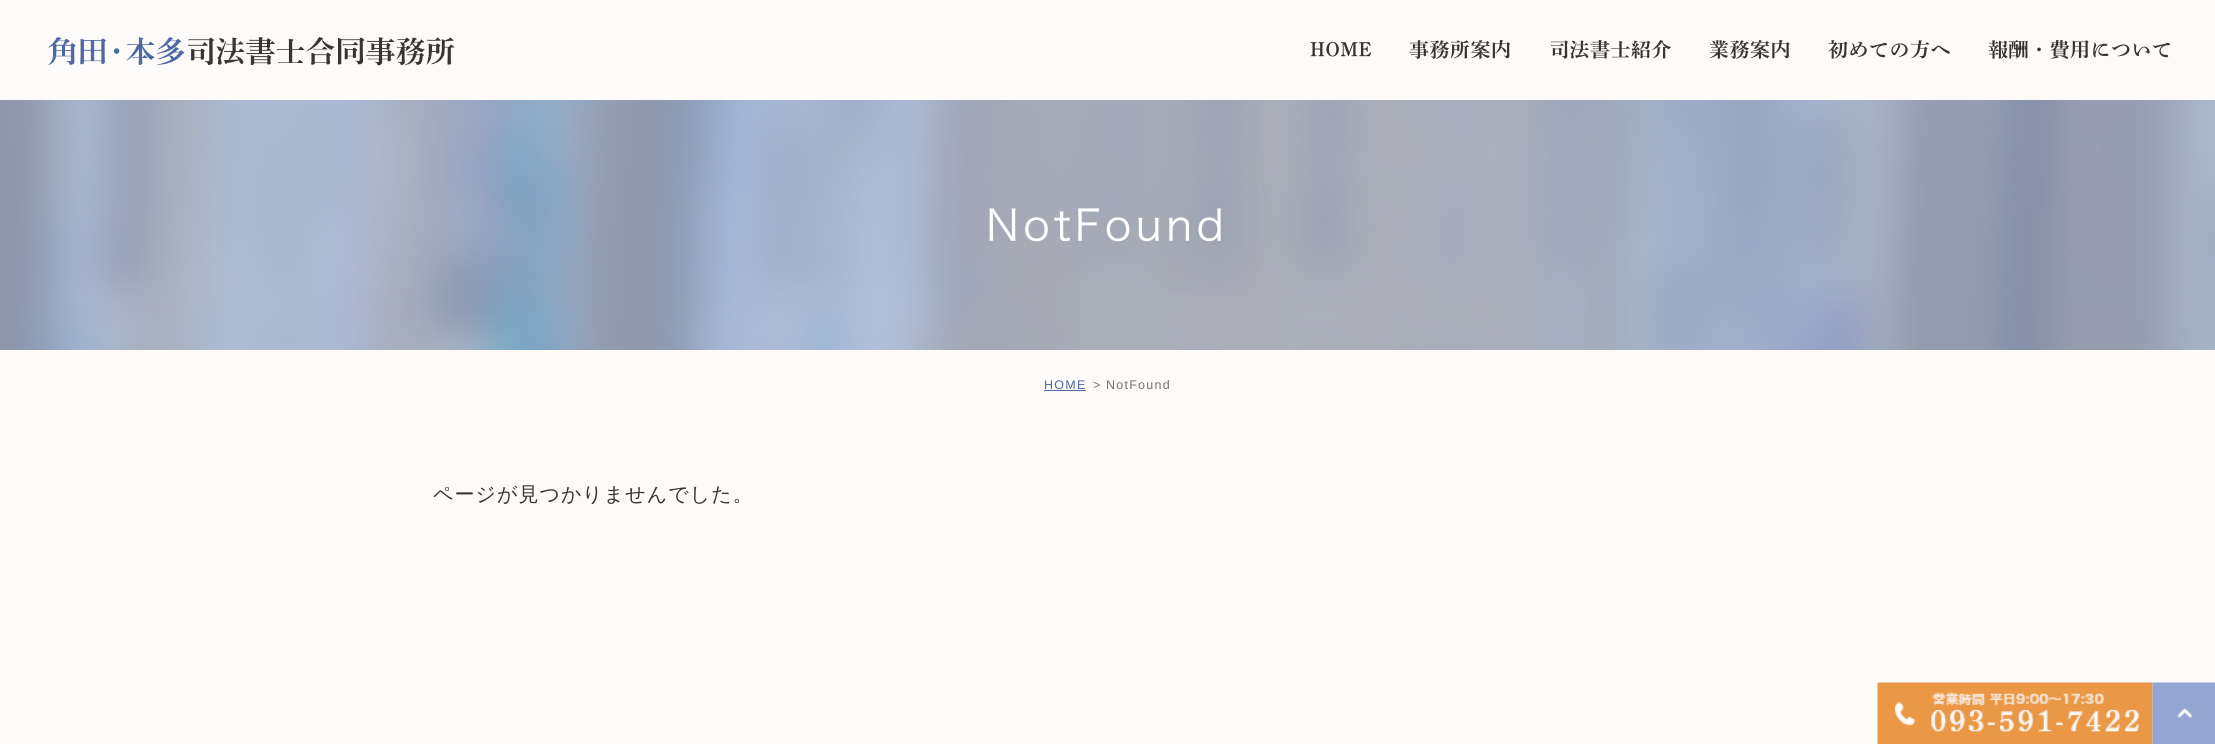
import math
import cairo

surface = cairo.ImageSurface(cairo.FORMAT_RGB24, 2215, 744)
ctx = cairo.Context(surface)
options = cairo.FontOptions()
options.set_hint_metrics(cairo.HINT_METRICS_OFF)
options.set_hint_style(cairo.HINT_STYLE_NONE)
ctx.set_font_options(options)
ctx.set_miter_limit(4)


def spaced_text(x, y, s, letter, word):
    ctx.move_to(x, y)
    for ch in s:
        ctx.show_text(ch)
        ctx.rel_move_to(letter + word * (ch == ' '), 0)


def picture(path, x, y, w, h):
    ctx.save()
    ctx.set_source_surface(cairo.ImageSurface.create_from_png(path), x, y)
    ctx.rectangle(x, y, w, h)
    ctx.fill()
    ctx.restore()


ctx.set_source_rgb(0.988, 0.984, 0.98)
ctx.paint()
picture("img1.png", 48, 37, 407, 29)
ctx.select_font_face("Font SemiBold")
ctx.set_font_size(20)
ctx.set_source_rgb(0.216, 0.204, 0.192)
spaced_text(1310, 57, "HOME", 0.5, 0)
spaced_text(1409, 57, "事務所案内", 0.5, 0)
spaced_text(1549, 57, "司法書士紹介", 0.5, 0)
spaced_text(1709, 57, "業務案内", 0.5, 0)
spaced_text(1828, 57, "初めての方へ", 0.5, 0)
spaced_text(1988, 57, "報酬・費用について", 0.5, 0)
picture("img2.png", 0, 100, 2215, 250)
ctx.select_font_face("Font Light")
ctx.set_font_size(42.5)
ctx.set_source_rgb(1, 1, 1)
spaced_text(986, 241, "NotFound", 4.25, 0)
ctx.select_font_face("Liberation Sans")
ctx.set_font_size(12.5)
ctx.set_source_rgb(0.302, 0.408, 0.635)
spaced_text(1044, 389, "HOME", 1.25, 0)
ctx.rectangle(1044, 390, 42, 1)
ctx.fill()
ctx.set_source_rgb(0.467, 0.443, 0.424)
spaced_text(1093, 389, ">", 1.25, 0)
spaced_text(1106, 389, "NotFound", 1.25, 0)
ctx.select_font_face("WenQuanYi Zen Hei Medium")
ctx.set_font_size(20)
ctx.set_source_rgb(0.216, 0.204, 0.192)
spaced_text(433, 501, "ページが見つかりませんでした。", 1, 0)
picture("img3.png", 1877, 682, 276, 62)
picture("img4.png", 2152, 682, 63, 62)
surface.write_to_png("page.png")
